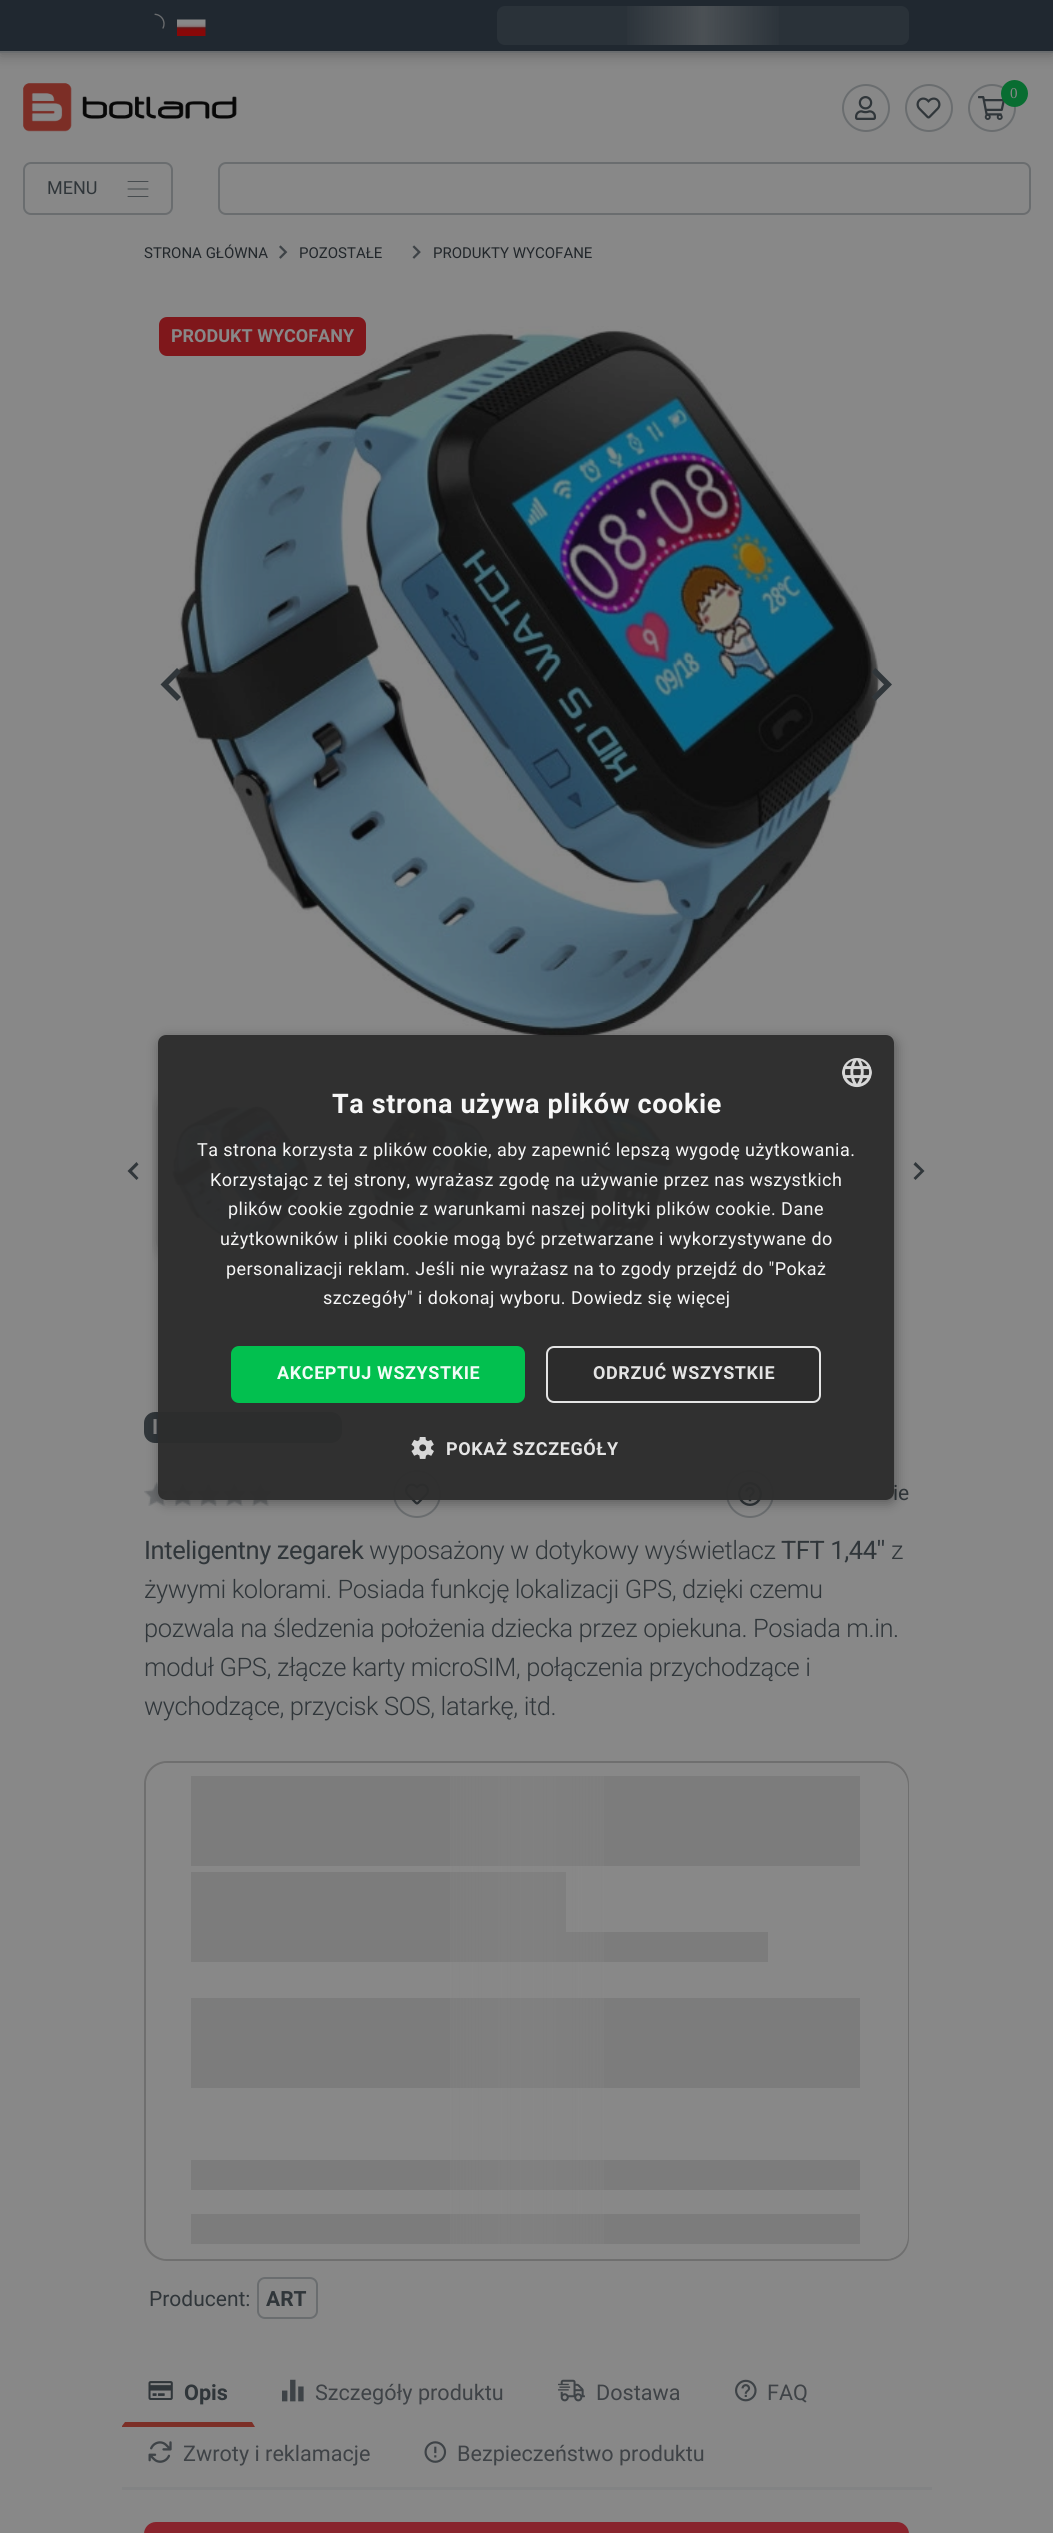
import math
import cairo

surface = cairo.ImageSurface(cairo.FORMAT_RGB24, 1053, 2533)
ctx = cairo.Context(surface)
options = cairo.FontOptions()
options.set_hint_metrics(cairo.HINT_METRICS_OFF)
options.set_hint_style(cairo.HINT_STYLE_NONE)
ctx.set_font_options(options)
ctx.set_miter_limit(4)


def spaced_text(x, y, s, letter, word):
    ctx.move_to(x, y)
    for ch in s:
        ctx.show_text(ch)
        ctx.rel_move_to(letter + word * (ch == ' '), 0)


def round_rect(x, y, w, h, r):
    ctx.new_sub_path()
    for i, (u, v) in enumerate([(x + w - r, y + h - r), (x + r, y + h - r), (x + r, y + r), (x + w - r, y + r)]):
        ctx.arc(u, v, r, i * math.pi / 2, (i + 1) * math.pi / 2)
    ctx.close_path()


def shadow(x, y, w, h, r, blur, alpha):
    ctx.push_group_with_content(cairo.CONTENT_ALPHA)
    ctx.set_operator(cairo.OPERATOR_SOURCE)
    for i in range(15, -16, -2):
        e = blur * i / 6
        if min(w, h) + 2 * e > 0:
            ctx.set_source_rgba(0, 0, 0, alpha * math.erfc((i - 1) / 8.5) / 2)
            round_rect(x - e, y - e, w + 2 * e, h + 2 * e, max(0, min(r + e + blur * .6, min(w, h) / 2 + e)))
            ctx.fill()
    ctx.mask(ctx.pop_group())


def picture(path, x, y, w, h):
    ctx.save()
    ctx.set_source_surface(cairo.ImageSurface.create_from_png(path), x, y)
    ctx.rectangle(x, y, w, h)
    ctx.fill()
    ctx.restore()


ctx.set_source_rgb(0.533, 0.533, 0.533)
ctx.paint()
ctx.set_source_rgb(0.035, 0.035, 0.035)
shadow(0, 2, 1053, 52, 0, 7, 0.3)
ctx.set_source_rgb(0.125, 0.157, 0.188)
ctx.rectangle(0, 0, 1053, 51)
ctx.fill()
ctx.set_source_rgb(0.416, 0.427, 0.435)
ctx.rectangle(0, 51, 1053, 2)
ctx.fill()
picture("img1.png", 154, 13, 11, 16)
picture("img2.png", 177, 19, 29, 17)
ctx.set_source_rgb(0.165, 0.196, 0.224)
round_rect(497, 6, 412, 39, 8)
ctx.fill()
gradient = cairo.LinearGradient(-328, 26, 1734, 25)
gradient.add_color_stop_rgba(0.46, 0.533, 0.533, 0.533, 0)
gradient.add_color_stop_rgba(0.5, 0.533, 0.533, 0.533, 0.35)
gradient.add_color_stop_rgba(0.54, 0.533, 0.533, 0.533, 0)
ctx.set_source(gradient)
ctx.rectangle(627, 6, 152, 39)
ctx.fill()
picture("img3.png", 23, 83, 214, 49)
ctx.arc(866, 108, 23, 0, 2 * math.pi)
ctx.set_source_rgb(0.416, 0.427, 0.435)
ctx.stroke()
picture("img4.png", 855, 96, 21, 24)
ctx.arc(929, 108, 23, 0, 2 * math.pi)
ctx.stroke()
picture("img5.png", 916, 97, 25, 22)
ctx.arc(992, 108, 23, 0, 2 * math.pi)
ctx.stroke()
picture("img6.png", 978, 96, 27, 24)
ctx.set_source_rgb(0.035, 0.427, 0.192)
ctx.arc(1014.5, 93.5, 13.5, 0, 2 * math.pi)
ctx.fill()
ctx.select_font_face("Liberation Serif")
ctx.set_font_size(15)
ctx.set_source_rgb(0.533, 0.533, 0.533)
ctx.move_to(1010, 98)
ctx.show_text("0")
round_rect(24, 163, 148, 51, 7)
ctx.set_source_rgb(0.416, 0.427, 0.435)
ctx.stroke()
ctx.select_font_face("Roboto")
ctx.set_font_size(18)
ctx.set_source_rgb(0.188, 0.212, 0.227)
ctx.move_to(47, 194)
ctx.show_text("MENU")
picture("img7.png", 127, 181, 22, 16)
round_rect(219, 163, 811, 51, 7)
ctx.set_source_rgb(0.416, 0.427, 0.435)
ctx.stroke()
ctx.set_font_size(15)
ctx.set_source_rgb(0.133, 0.153, 0.169)
ctx.move_to(144, 258)
ctx.show_text("STRONA GŁÓWNA")
picture("img8.png", 279, 245, 9, 14)
ctx.move_to(299, 258)
ctx.show_text("POZOSTAŁE")
picture("img9.png", 412, 245, 9, 14)
ctx.move_to(433, 258)
ctx.show_text("PRODUKTY WYCOFANE")
picture("img10.png", 168, 326, 713, 713)
ctx.set_source_rgb(0.188, 0.212, 0.227)
ctx.new_path()
ctx.move_to(177, 668)
ctx.line_to(160.5, 684.5)
ctx.line_to(177, 701)
ctx.line_to(181, 697)
ctx.line_to(168.5, 684.5)
ctx.line_to(181, 672)
ctx.close_path()
ctx.fill()
ctx.new_path()
ctx.move_to(871.5, 672)
ctx.line_to(884, 684.5)
ctx.line_to(871.5, 697)
ctx.line_to(875.5, 701)
ctx.line_to(892, 684.5)
ctx.line_to(875.5, 668)
ctx.close_path()
ctx.fill()
ctx.save()
ctx.rectangle(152, 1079, 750, 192)
ctx.clip()
ctx.set_fill_rule(cairo.FILL_RULE_EVEN_ODD)
ctx.new_path()
ctx.move_to(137, 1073)
ctx.line_to(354, 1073)
ctx.line_to(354, 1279)
ctx.line_to(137, 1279)
ctx.close_path()
ctx.move_to(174, 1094)
ctx.line_to(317, 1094)
ctx.curve_to(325.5, 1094, 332, 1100.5, 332, 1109)
ctx.line_to(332, 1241)
ctx.curve_to(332, 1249.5, 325.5, 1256, 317, 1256)
ctx.line_to(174, 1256)
ctx.curve_to(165.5, 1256, 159, 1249.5, 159, 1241)
ctx.line_to(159, 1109)
ctx.curve_to(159, 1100.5, 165.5, 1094, 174, 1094)
ctx.close_path()
ctx.clip()
ctx.set_source_rgb(0.035, 0.035, 0.035)
shadow(159, 1095, 173, 162, 15, 7, 0.3)
ctx.restore()
picture("img11.png", 167, 1101, 146, 147)
ctx.set_source_rgb(0.522, 0.522, 0.525)
ctx.rectangle(313, 1101, 1, 147)
ctx.fill()
picture("img12.png", 354, 1101, 147, 147)
picture("img13.png", 542, 1101, 147, 147)
ctx.set_source_rgb(0.188, 0.212, 0.227)
ctx.new_path()
ctx.move_to(136.5, 1162)
ctx.line_to(127.5, 1171)
ctx.line_to(136.5, 1180)
ctx.line_to(138.5, 1178)
ctx.line_to(132, 1171)
ctx.line_to(138.5, 1164.5)
ctx.close_path()
ctx.fill()
ctx.new_path()
ctx.move_to(913.5, 1164.5)
ctx.line_to(920.5, 1171)
ctx.line_to(913.5, 1178)
ctx.line_to(915.5, 1180)
ctx.line_to(924.5, 1171)
ctx.line_to(915.5, 1162)
ctx.close_path()
ctx.fill()
ctx.set_source_rgb(0.498, 0.09, 0.106)
round_rect(159, 317, 207, 39, 8)
ctx.fill()
ctx.select_font_face("Roboto", cairo.FONT_SLANT_NORMAL, cairo.FONT_WEIGHT_BOLD)
ctx.set_font_size(18)
ctx.set_source_rgb(0.533, 0.533, 0.533)
ctx.move_to(171, 342)
ctx.show_text("PRODUKT WYCOFANY")
ctx.set_source_rgb(0.188, 0.212, 0.227)
round_rect(144, 1412, 198, 31, 11)
ctx.fill()
ctx.set_font_size(21)
ctx.set_source_rgb(0.533, 0.533, 0.533)
ctx.move_to(152, 1434)
ctx.show_text("I")
picture("img14.png", 144, 1482, 129, 24)
ctx.arc(417, 1494, 23, 0, 2 * math.pi)
ctx.set_source_rgb(0.416, 0.427, 0.435)
ctx.stroke()
picture("img15.png", 405, 1483, 24, 22)
ctx.arc(750, 1494, 23, 0, 2 * math.pi)
ctx.stroke()
picture("img16.png", 738, 1482, 24, 24)
ctx.select_font_face("Roboto")
ctx.set_source_rgb(0.188, 0.212, 0.227)
ctx.move_to(893, 1500)
ctx.show_text("ie")
ctx.set_font_size(25.5)
spaced_text(144, 1559, "Inteligentny zegarek", -0.4, 0)
ctx.select_font_face("Roboto Light")
spaced_text(369, 1559, "wyposażony w dotykowy wyświetlacz", -0.4, 0)
ctx.select_font_face("Roboto")
spaced_text(781, 1559, "TFT 1,44''", -0.4, 0)
ctx.select_font_face("Roboto Light")
spaced_text(891, 1559, "z", -0.4, 0)
spaced_text(144, 1598, "żywymi kolorami. Posiada funkcję lokalizacji GPS, dzięki czemu", -0.4, 0)
spaced_text(144, 1637, "pozwala na śledzenia położenia dziecka przez opiekuna. Posiada m.in.", -0.4, 0)
spaced_text(144, 1676, "moduł GPS, złącze karty microSIM, połączenia przychodzące i", -0.4, 0)
spaced_text(144, 1715, "wychodzące, przycisk SOS, latarkę, itd.", -0.4, 0)
round_rect(145, 1762, 763, 498, 22)
ctx.set_source_rgb(0.435, 0.435, 0.435)
ctx.stroke()
ctx.set_source_rgb(0.533, 0.533, 0.533)
round_rect(146, 1763, 762, 496, 23)
ctx.fill()
ctx.set_source_rgb(0.486, 0.486, 0.486)
ctx.rectangle(191, 1776, 669, 90)
ctx.fill()
ctx.rectangle(191, 1872, 375, 60)
ctx.fill()
ctx.rectangle(191, 1932, 577, 30)
ctx.fill()
ctx.rectangle(191, 1998, 669, 90)
ctx.fill()
ctx.rectangle(191, 2160, 669, 30)
ctx.fill()
ctx.rectangle(191, 2214, 669, 30)
ctx.fill()
gradient = cairo.LinearGradient(-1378, 2011, 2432, 2011)
gradient.add_color_stop_rgba(0.46, 0.533, 0.533, 0.533, 0)
gradient.add_color_stop_rgba(0.5, 0.533, 0.533, 0.533, 0.35)
gradient.add_color_stop_rgba(0.54, 0.533, 0.533, 0.533, 0)
ctx.set_source(gradient)
ctx.rectangle(450, 1776, 154, 468)
ctx.fill()
ctx.select_font_face("Roboto")
ctx.set_font_size(21)
ctx.set_source_rgb(0.188, 0.212, 0.227)
ctx.move_to(149, 2306)
ctx.show_text("Producent:")
round_rect(258, 2278, 59, 40, 7)
ctx.set_source_rgb(0.416, 0.427, 0.435)
ctx.stroke()
ctx.select_font_face("Roboto", cairo.FONT_SLANT_NORMAL, cairo.FONT_WEIGHT_BOLD)
ctx.set_source_rgb(0.188, 0.212, 0.227)
ctx.move_to(266, 2306)
ctx.show_text("ART")
ctx.set_source_rgb(0.51, 0.514, 0.518)
ctx.rectangle(122, 2487, 810, 3)
ctx.fill()
ctx.set_source_rgb(0.486, 0.184, 0.153)
ctx.new_path()
ctx.move_to(255, 2427)
ctx.line_to(252, 2422)
ctx.line_to(125, 2422)
ctx.line_to(122, 2426)
ctx.line_to(122, 2427)
ctx.close_path()
ctx.fill()
picture("img17.png", 148, 2381, 25, 19)
ctx.set_font_size(21.6)
ctx.set_source_rgb(0.188, 0.212, 0.227)
ctx.move_to(184, 2400)
ctx.show_text("Opis")
picture("img18.png", 282, 2379, 22, 23)
ctx.select_font_face("Roboto")
ctx.set_source_rgb(0.247, 0.263, 0.278)
ctx.move_to(315, 2400)
ctx.show_text("Szczegóły produktu")
picture("img19.png", 558, 2379, 27, 23)
ctx.move_to(596, 2400)
ctx.show_text("Dostawa")
picture("img20.png", 735, 2379, 22, 23)
ctx.move_to(767, 2400)
ctx.show_text("FAQ")
picture("img21.png", 148, 2441, 24, 22)
ctx.move_to(183, 2461)
ctx.show_text("Zwroty i reklamacje")
picture("img22.png", 424, 2441, 23, 22)
ctx.move_to(457, 2461)
ctx.show_text("Bezpieczeństwo produktu")
ctx.set_source_rgb(0.533, 0.141, 0.176)
round_rect(144, 2522, 765, 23, 12)
ctx.fill()
ctx.save()
ctx.set_fill_rule(cairo.FILL_RULE_EVEN_ODD)
ctx.new_path()
ctx.move_to(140, 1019)
ctx.line_to(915, 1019)
ctx.line_to(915, 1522)
ctx.line_to(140, 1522)
ctx.close_path()
ctx.move_to(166, 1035)
ctx.line_to(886, 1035)
ctx.curve_to(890.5, 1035, 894, 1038.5, 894, 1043)
ctx.line_to(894, 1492)
ctx.curve_to(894, 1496.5, 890.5, 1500, 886, 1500)
ctx.line_to(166, 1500)
ctx.curve_to(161.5, 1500, 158, 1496.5, 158, 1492)
ctx.line_to(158, 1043)
ctx.curve_to(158, 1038.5, 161.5, 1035, 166, 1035)
ctx.close_path()
ctx.clip()
ctx.set_source_rgb(0, 0, 0)
shadow(159, 1038, 737, 465, 8, 6, 0.33)
ctx.restore()
ctx.set_source_rgba(0.176, 0.176, 0.176, 0.95)
round_rect(158, 1035, 736, 465, 8)
ctx.fill()
picture("img23.png", 842, 1058, 30, 30)
ctx.select_font_face("Roboto", cairo.FONT_SLANT_NORMAL, cairo.FONT_WEIGHT_BOLD)
ctx.set_font_size(27)
ctx.set_source_rgb(0.961, 0.961, 0.961)
spaced_text(332, 1113, "Ta strona używa plików cookie", 0.6, 0)
ctx.select_font_face("Roboto")
ctx.set_font_size(18)
spaced_text(197, 1156, "Ta strona korzysta z plików cookie, aby zapewnić lepszą wygodę użytkowania.", 0.45, 0)
spaced_text(210, 1186, "Korzystając z tej strony, wyrażasz zgodę na używanie przez nas wszystkich", 0.45, 0)
spaced_text(228, 1215, "plików cookie zgodnie z warunkami naszej polityki plików cookie. Dane", 0.45, 0)
spaced_text(220, 1245, "użytkowników i pliki cookie mogą być przetwarzane i wykorzystywane do", 0.45, 0)
spaced_text(226, 1275, "personalizacji reklam. Jeśli nie wyrażasz na to zgody przejdź do \"Pokaż", 0.45, 0)
spaced_text(323, 1304, "szczegóły\" i dokonaj wyboru. Dowiedz się więcej", 0.45, 0)
ctx.set_source_rgba(0, 0.784, 0.318, 0.95)
round_rect(231, 1346, 294, 57, 8)
ctx.fill()
ctx.select_font_face("Roboto", cairo.FONT_SLANT_NORMAL, cairo.FONT_WEIGHT_BOLD)
ctx.set_source_rgb(0.949, 0.988, 0.965)
spaced_text(277, 1379, "AKCEPTUJ WSZYSTKIE", 0.6, 0)
ctx.set_source_rgba(0.176, 0.176, 0.176, 0.95)
round_rect(547, 1347, 273, 55, 7)
ctx.fill_preserve()
ctx.set_source_rgb(0.894, 0.894, 0.894)
ctx.stroke()
spaced_text(593, 1379, "ODRZUĆ WSZYSTKIE", 0.6, 0)
picture("img24.png", 411, 1437, 23, 22)
spaced_text(446, 1455, "POKAŻ SZCZEGÓŁY", 0.6, 0)
surface.write_to_png("page.png")
